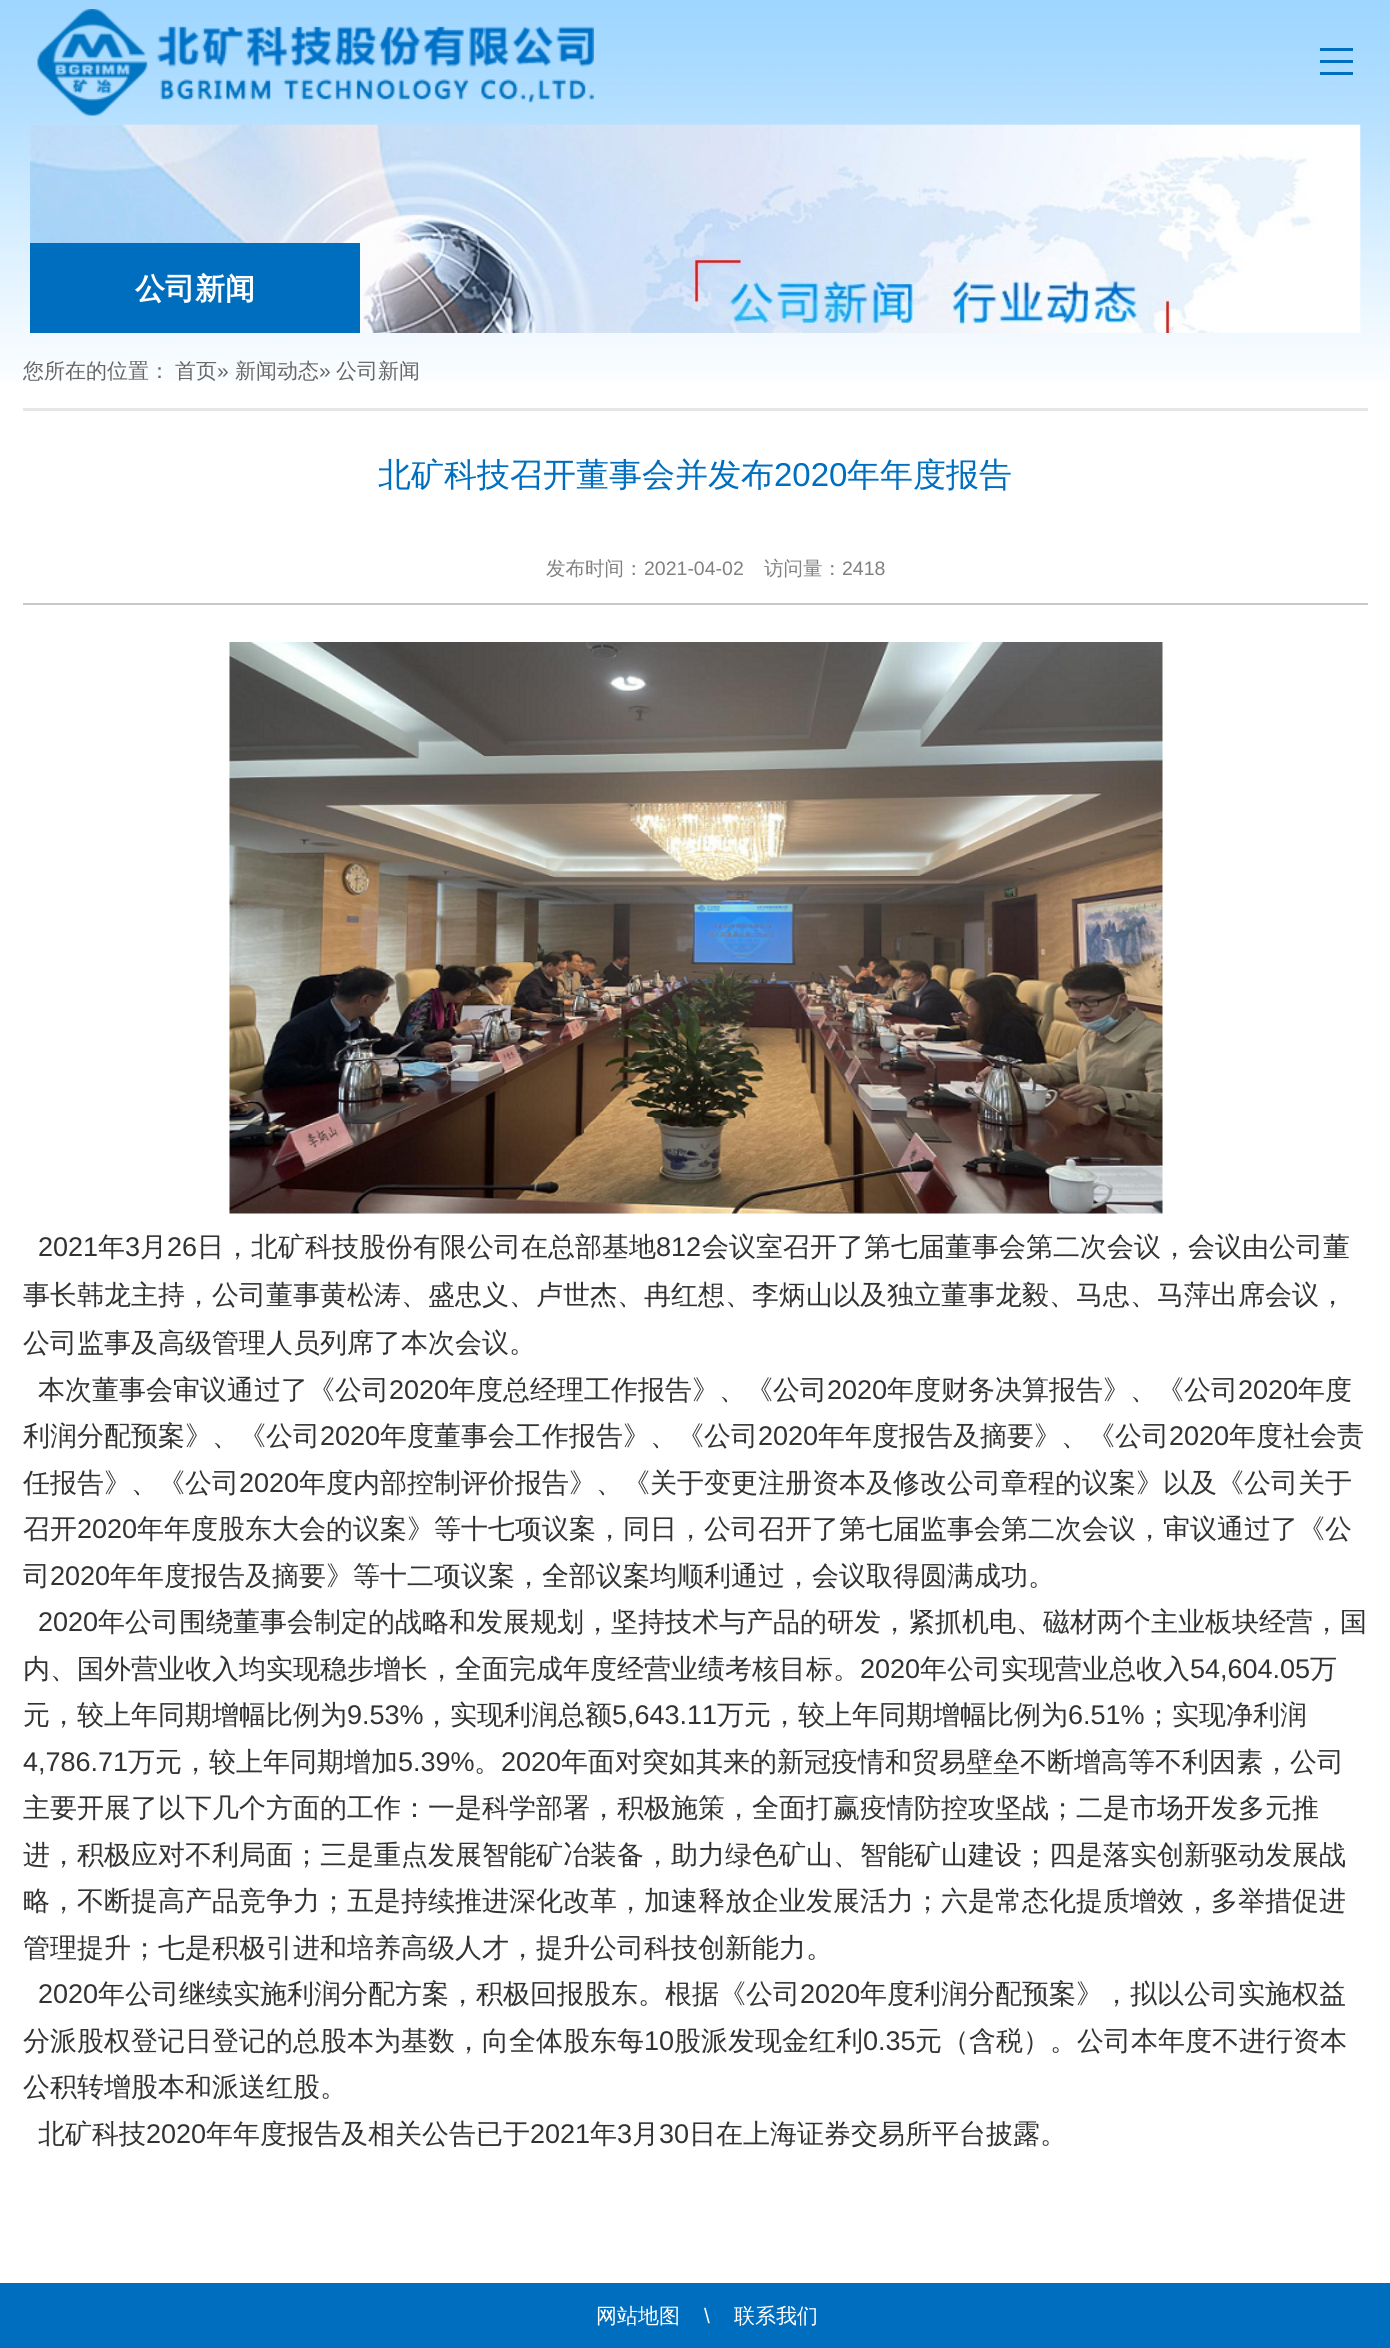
import math
import cairo

surface = cairo.ImageSurface(cairo.FORMAT_RGB24, 1390, 2348)
ctx = cairo.Context(surface)
options = cairo.FontOptions()
options.set_hint_metrics(cairo.HINT_METRICS_OFF)
options.set_hint_style(cairo.HINT_STYLE_NONE)
ctx.set_font_options(options)
ctx.set_miter_limit(4)


def picture(path, x, y, w, h):
    ctx.save()
    ctx.set_source_surface(cairo.ImageSurface.create_from_png(path), x, y)
    ctx.rectangle(x, y, w, h)
    ctx.fill()
    ctx.restore()


ctx.set_source_rgb(1, 1, 1)
ctx.paint()
picture("img1.png", 0, 0, 1390, 382)
picture("img2.png", 37, 9, 557, 107)
ctx.set_source_rgb(0, 0.431, 0.749)
ctx.rectangle(1320, 48, 33, 3)
ctx.fill()
ctx.rectangle(1320, 60, 33, 3)
ctx.fill()
ctx.rectangle(1320, 72, 33, 3)
ctx.fill()
picture("img3.png", 30, 124, 1331, 209)
ctx.rectangle(30, 243, 330, 90)
ctx.fill()
ctx.select_font_face("WenQuanYi Zen Hei", cairo.FONT_SLANT_NORMAL, cairo.FONT_WEIGHT_BOLD)
ctx.set_font_size(30)
ctx.set_source_rgb(1, 1, 1)
ctx.move_to(135, 299)
ctx.show_text("公司新闻")
ctx.set_source_rgb(0.902, 0.902, 0.902)
ctx.rectangle(23, 408, 1345, 3)
ctx.fill()
ctx.select_font_face("WenQuanYi Zen Hei Medium")
ctx.set_font_size(21)
ctx.set_source_rgb(0.4, 0.4, 0.4)
ctx.move_to(23, 378)
ctx.show_text("您所在的位置：")
ctx.move_to(175, 378)
ctx.show_text("首页")
ctx.select_font_face("Liberation Sans")
ctx.move_to(217, 378)
ctx.show_text("»")
ctx.select_font_face("WenQuanYi Zen Hei Medium")
ctx.move_to(235, 378)
ctx.show_text("新闻动态")
ctx.select_font_face("Liberation Sans")
ctx.move_to(319, 378)
ctx.show_text("»")
ctx.select_font_face("WenQuanYi Zen Hei Medium")
ctx.move_to(336, 378)
ctx.show_text("公司新闻")
ctx.set_font_size(33)
ctx.set_source_rgb(0, 0.431, 0.749)
ctx.move_to(378, 486)
ctx.show_text("北矿科技召开董事会并发布")
ctx.select_font_face("Liberation Sans")
ctx.move_to(774, 486)
ctx.show_text("2020")
ctx.select_font_face("WenQuanYi Zen Hei Medium")
ctx.move_to(847, 486)
ctx.show_text("年年度报告")
ctx.set_source_rgb(0.784, 0.784, 0.784)
ctx.rectangle(23, 603, 1345, 2)
ctx.fill()
ctx.set_font_size(19.5)
ctx.set_source_rgb(0.502, 0.502, 0.502)
ctx.move_to(546, 575)
ctx.show_text("发布时间：")
ctx.select_font_face("Liberation Sans")
ctx.move_to(644, 575)
ctx.show_text("2021-04-02")
ctx.select_font_face("WenQuanYi Zen Hei Medium")
ctx.move_to(764, 575)
ctx.show_text("访问量：")
ctx.select_font_face("Liberation Sans")
ctx.move_to(842, 575)
ctx.show_text("2418")
picture("img4.png", 229, 642, 934, 572)
ctx.set_font_size(27)
ctx.set_source_rgb(0.196, 0.196, 0.196)
ctx.move_to(38, 1256)
ctx.show_text("2021")
ctx.select_font_face("WenQuanYi Zen Hei Medium")
ctx.move_to(98, 1256)
ctx.show_text("年")
ctx.select_font_face("Liberation Sans")
ctx.move_to(125, 1256)
ctx.show_text("3")
ctx.select_font_face("WenQuanYi Zen Hei Medium")
ctx.move_to(140, 1256)
ctx.show_text("月")
ctx.select_font_face("Liberation Sans")
ctx.move_to(167, 1256)
ctx.show_text("26")
ctx.select_font_face("WenQuanYi Zen Hei Medium")
ctx.move_to(197, 1256)
ctx.show_text("日，北矿科技股份有限公司在总部基地")
ctx.select_font_face("Liberation Sans")
ctx.move_to(656, 1256)
ctx.show_text("812")
ctx.select_font_face("WenQuanYi Zen Hei Medium")
ctx.move_to(702, 1256)
ctx.show_text("会议室召开了第七届董事会第二次会议，会议由公司董")
ctx.move_to(23, 1304)
ctx.show_text("事长韩龙主持，公司董事黄松涛、盛忠义、卢世杰、冉红想、李炳山以及独立董事龙毅、马忠、马萍出席会议，")
ctx.move_to(23, 1352)
ctx.show_text("公司监事及高级管理人员列席了本次会议。")
ctx.move_to(38, 1399)
ctx.show_text("本次董事会审议通过了《公司")
ctx.select_font_face("Liberation Sans")
ctx.move_to(389, 1399)
ctx.show_text("2020")
ctx.select_font_face("WenQuanYi Zen Hei Medium")
ctx.move_to(449, 1399)
ctx.show_text("年度总经理工作报告》、《公司")
ctx.select_font_face("Liberation Sans")
ctx.move_to(827, 1399)
ctx.show_text("2020")
ctx.select_font_face("WenQuanYi Zen Hei Medium")
ctx.move_to(887, 1399)
ctx.show_text("年度财务决算报告》、《公司")
ctx.select_font_face("Liberation Sans")
ctx.move_to(1238, 1399)
ctx.show_text("2020")
ctx.select_font_face("WenQuanYi Zen Hei Medium")
ctx.move_to(1298, 1399)
ctx.show_text("年度")
ctx.move_to(23, 1445)
ctx.show_text("利润分配预案》、《公司")
ctx.select_font_face("Liberation Sans")
ctx.move_to(320, 1445)
ctx.show_text("2020")
ctx.select_font_face("WenQuanYi Zen Hei Medium")
ctx.move_to(380, 1445)
ctx.show_text("年度董事会工作报告》、《公司")
ctx.select_font_face("Liberation Sans")
ctx.move_to(758, 1445)
ctx.show_text("2020")
ctx.select_font_face("WenQuanYi Zen Hei Medium")
ctx.move_to(818, 1445)
ctx.show_text("年年度报告及摘要》、《公司")
ctx.select_font_face("Liberation Sans")
ctx.move_to(1169, 1445)
ctx.show_text("2020")
ctx.select_font_face("WenQuanYi Zen Hei Medium")
ctx.move_to(1229, 1445)
ctx.show_text("年度社会责")
ctx.move_to(23, 1492)
ctx.show_text("任报告》、《公司")
ctx.select_font_face("Liberation Sans")
ctx.move_to(239, 1492)
ctx.show_text("2020")
ctx.select_font_face("WenQuanYi Zen Hei Medium")
ctx.move_to(299, 1492)
ctx.show_text("年度内部控制评价报告》、《关于变更注册资本及修改公司章程的议案》以及《公司关于")
ctx.move_to(23, 1538)
ctx.show_text("召开")
ctx.select_font_face("Liberation Sans")
ctx.move_to(77, 1538)
ctx.show_text("2020")
ctx.select_font_face("WenQuanYi Zen Hei Medium")
ctx.move_to(137, 1538)
ctx.show_text("年年度股东大会的议案》等十七项议案，同日，公司召开了第七届监事会第二次会议，审议通过了《公")
ctx.move_to(23, 1585)
ctx.show_text("司")
ctx.select_font_face("Liberation Sans")
ctx.move_to(50, 1585)
ctx.show_text("2020")
ctx.select_font_face("WenQuanYi Zen Hei Medium")
ctx.move_to(110, 1585)
ctx.show_text("年年度报告及摘要》等十二项议案，全部议案均顺利通过，会议取得圆满成功。")
ctx.select_font_face("Liberation Sans")
ctx.move_to(38, 1631)
ctx.show_text("2020")
ctx.select_font_face("WenQuanYi Zen Hei Medium")
ctx.move_to(98, 1631)
ctx.show_text("年公司围绕董事会制定的战略和发展规划，坚持技术与产品的研发，紧抓机电、磁材两个主业板块经营，国")
ctx.move_to(23, 1678)
ctx.show_text("内、国外营业收入均实现稳步增长，全面完成年度经营业绩考核目标。")
ctx.select_font_face("Liberation Sans")
ctx.move_to(860, 1678)
ctx.show_text("2020")
ctx.select_font_face("WenQuanYi Zen Hei Medium")
ctx.move_to(920, 1678)
ctx.show_text("年公司实现营业总收入")
ctx.select_font_face("Liberation Sans")
ctx.move_to(1190, 1678)
ctx.show_text("54,604.05")
ctx.select_font_face("WenQuanYi Zen Hei Medium")
ctx.move_to(1310, 1678)
ctx.show_text("万")
ctx.move_to(23, 1724)
ctx.show_text("元，较上年同期增幅比例为")
ctx.select_font_face("Liberation Sans")
ctx.move_to(347, 1724)
ctx.show_text("9.53%")
ctx.select_font_face("WenQuanYi Zen Hei Medium")
ctx.move_to(423, 1724)
ctx.show_text("，实现利润总额")
ctx.select_font_face("Liberation Sans")
ctx.move_to(612, 1724)
ctx.show_text("5,643.11")
ctx.select_font_face("WenQuanYi Zen Hei Medium")
ctx.move_to(717, 1724)
ctx.show_text("万元，较上年同期增幅比例为")
ctx.select_font_face("Liberation Sans")
ctx.move_to(1068, 1724)
ctx.show_text("6.51%")
ctx.select_font_face("WenQuanYi Zen Hei Medium")
ctx.move_to(1145, 1724)
ctx.show_text("；实现净利润")
ctx.select_font_face("Liberation Sans")
ctx.move_to(23, 1771)
ctx.show_text("4,786.71")
ctx.select_font_face("WenQuanYi Zen Hei Medium")
ctx.move_to(128, 1771)
ctx.show_text("万元，较上年同期增加")
ctx.select_font_face("Liberation Sans")
ctx.move_to(398, 1771)
ctx.show_text("5.39%")
ctx.select_font_face("WenQuanYi Zen Hei Medium")
ctx.move_to(474, 1771)
ctx.show_text("。")
ctx.select_font_face("Liberation Sans")
ctx.move_to(501, 1771)
ctx.show_text("2020")
ctx.select_font_face("WenQuanYi Zen Hei Medium")
ctx.move_to(561, 1771)
ctx.show_text("年面对突如其来的新冠疫情和贸易壁垒不断增高等不利因素，公司")
ctx.move_to(23, 1817)
ctx.show_text("主要开展了以下几个方面的工作：一是科学部署，积极施策，全面打赢疫情防控攻坚战；二是市场开发多元推")
ctx.move_to(23, 1864)
ctx.show_text("进，积极应对不利局面；三是重点发展智能矿冶装备，助力绿色矿山、智能矿山建设；四是落实创新驱动发展战")
ctx.move_to(23, 1910)
ctx.show_text("略，不断提高产品竞争力；五是持续推进深化改革，加速释放企业发展活力；六是常态化提质增效，多举措促进")
ctx.move_to(23, 1957)
ctx.show_text("管理提升；七是积极引进和培养高级人才，提升公司科技创新能力。")
ctx.select_font_face("Liberation Sans")
ctx.move_to(38, 2003)
ctx.show_text("2020")
ctx.select_font_face("WenQuanYi Zen Hei Medium")
ctx.move_to(98, 2003)
ctx.show_text("年公司继续实施利润分配方案，积极回报股东。根据《公司")
ctx.select_font_face("Liberation Sans")
ctx.move_to(800, 2003)
ctx.show_text("2020")
ctx.select_font_face("WenQuanYi Zen Hei Medium")
ctx.move_to(860, 2003)
ctx.show_text("年度利润分配预案》，拟以公司实施权益")
ctx.move_to(23, 2050)
ctx.show_text("分派股权登记日登记的总股本为基数，向全体股东每")
ctx.select_font_face("Liberation Sans")
ctx.move_to(644, 2050)
ctx.show_text("10")
ctx.select_font_face("WenQuanYi Zen Hei Medium")
ctx.move_to(674, 2050)
ctx.show_text("股派发现金红利")
ctx.select_font_face("Liberation Sans")
ctx.move_to(863, 2050)
ctx.show_text("0.35")
ctx.select_font_face("WenQuanYi Zen Hei Medium")
ctx.move_to(915, 2050)
ctx.show_text("元（含税）。公司本年度不进行资本")
ctx.move_to(23, 2096)
ctx.show_text("公积转增股本和派送红股。")
ctx.move_to(38, 2143)
ctx.show_text("北矿科技")
ctx.select_font_face("Liberation Sans")
ctx.move_to(146, 2143)
ctx.show_text("2020")
ctx.select_font_face("WenQuanYi Zen Hei Medium")
ctx.move_to(206, 2143)
ctx.show_text("年年度报告及相关公告已于")
ctx.select_font_face("Liberation Sans")
ctx.move_to(530, 2143)
ctx.show_text("2021")
ctx.select_font_face("WenQuanYi Zen Hei Medium")
ctx.move_to(590, 2143)
ctx.show_text("年")
ctx.select_font_face("Liberation Sans")
ctx.move_to(617, 2143)
ctx.show_text("3")
ctx.select_font_face("WenQuanYi Zen Hei Medium")
ctx.move_to(632, 2143)
ctx.show_text("月")
ctx.select_font_face("Liberation Sans")
ctx.move_to(659, 2143)
ctx.show_text("30")
ctx.select_font_face("WenQuanYi Zen Hei Medium")
ctx.move_to(689, 2143)
ctx.show_text("日在上海证券交易所平台披露。")
ctx.set_source_rgb(0, 0.431, 0.749)
ctx.rectangle(0, 2283, 1390, 65)
ctx.fill()
ctx.set_font_size(21)
ctx.set_source_rgb(1, 1, 1)
ctx.move_to(596, 2323)
ctx.show_text("网站地图")
ctx.select_font_face("Liberation Sans")
ctx.move_to(704, 2323)
ctx.show_text("\\")
ctx.select_font_face("WenQuanYi Zen Hei Medium")
ctx.move_to(734, 2323)
ctx.show_text("联系我们")
surface.write_to_png("page.png")
